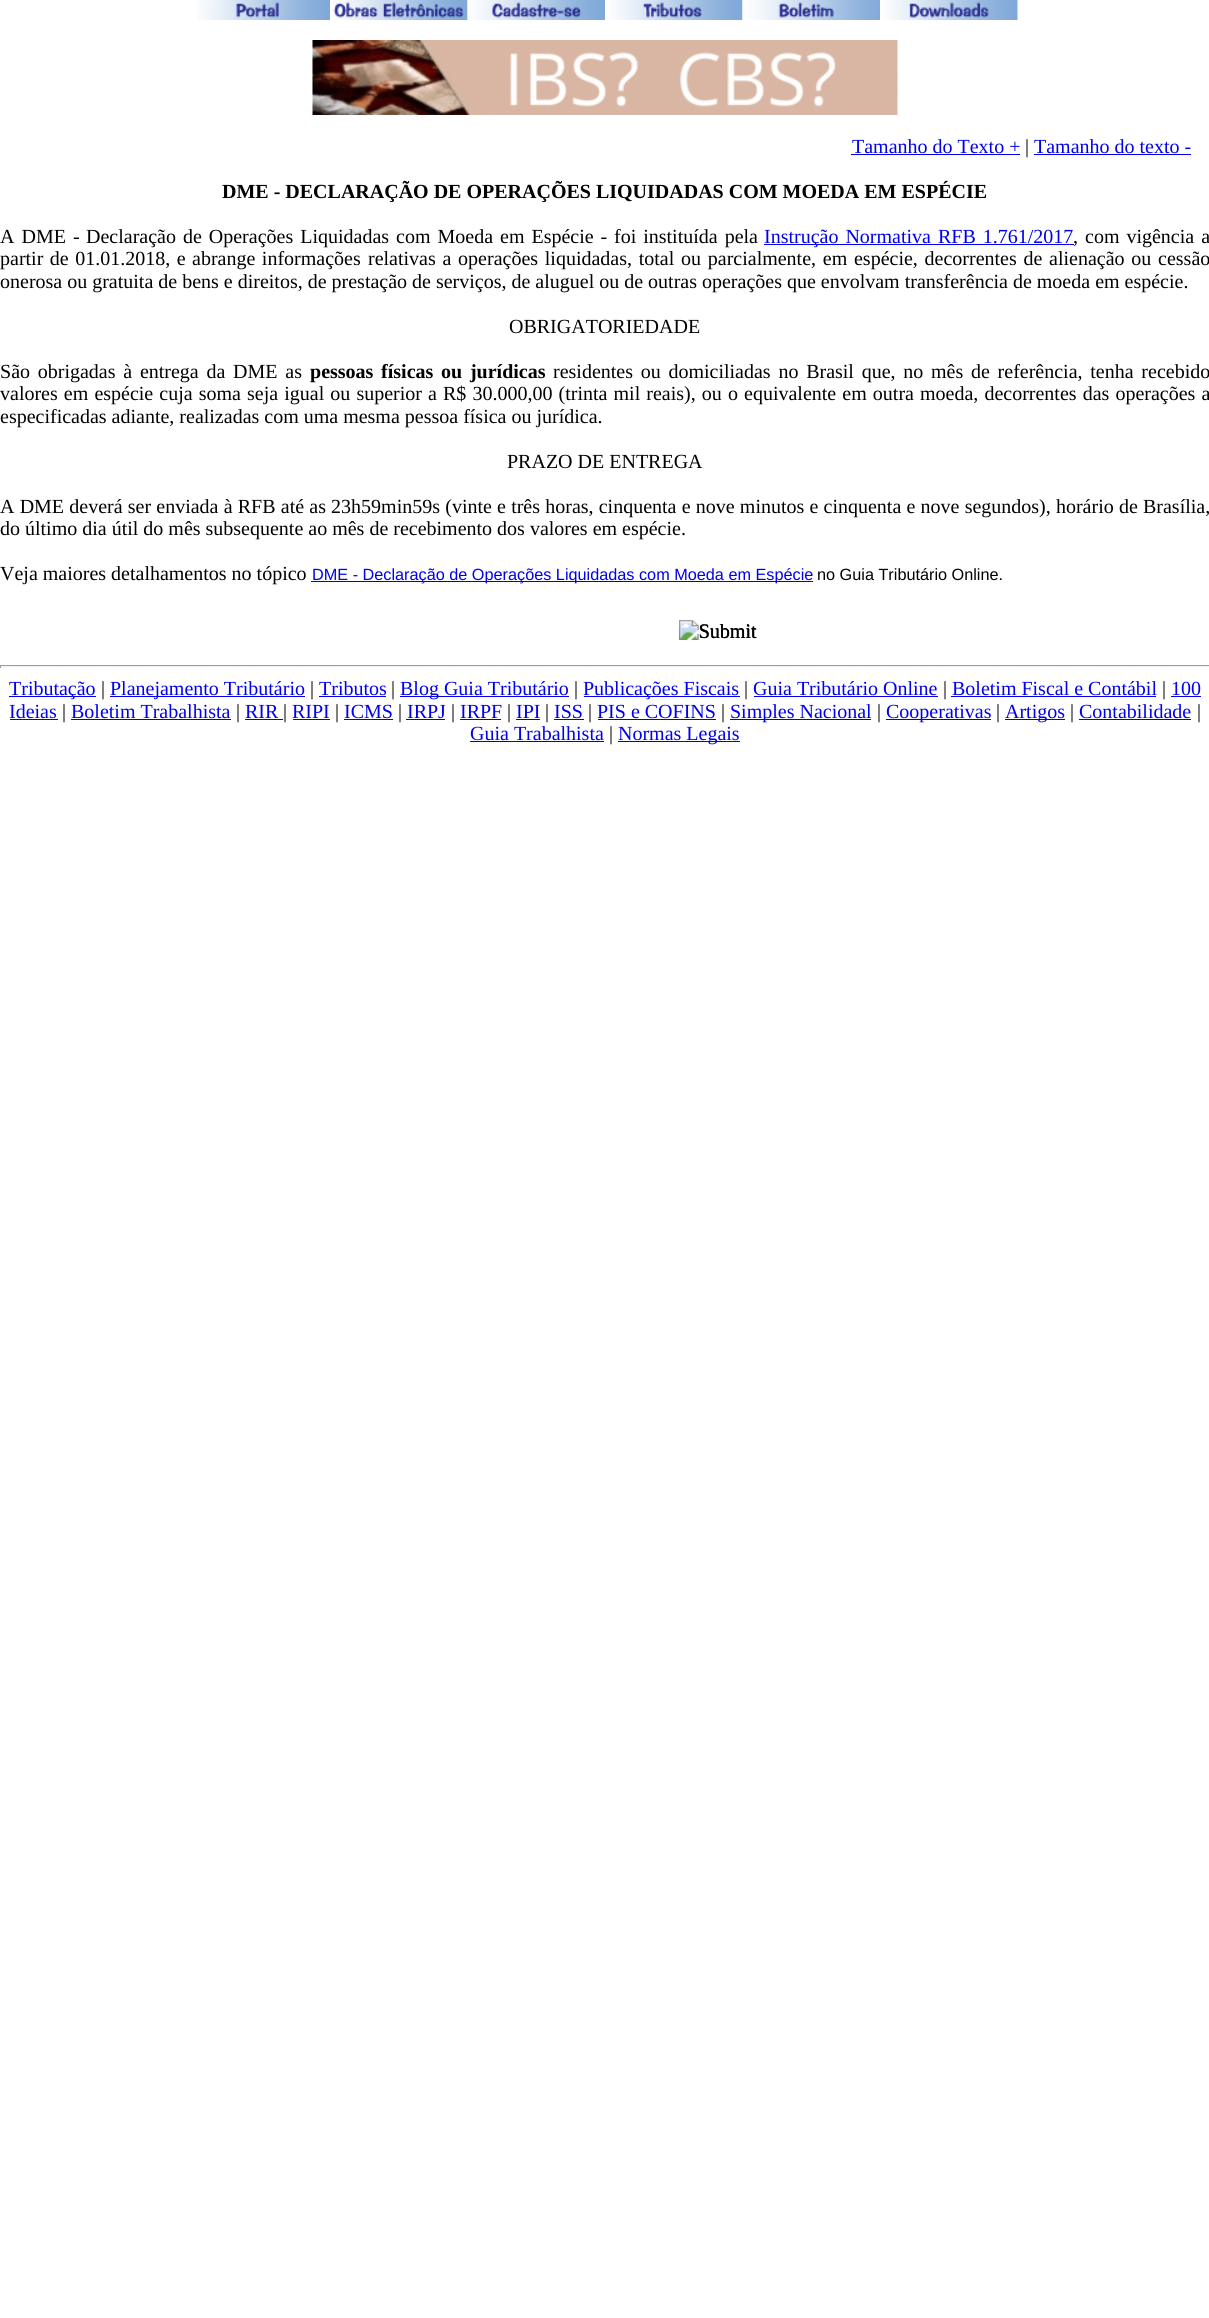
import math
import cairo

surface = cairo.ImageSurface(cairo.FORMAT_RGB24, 1209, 2318)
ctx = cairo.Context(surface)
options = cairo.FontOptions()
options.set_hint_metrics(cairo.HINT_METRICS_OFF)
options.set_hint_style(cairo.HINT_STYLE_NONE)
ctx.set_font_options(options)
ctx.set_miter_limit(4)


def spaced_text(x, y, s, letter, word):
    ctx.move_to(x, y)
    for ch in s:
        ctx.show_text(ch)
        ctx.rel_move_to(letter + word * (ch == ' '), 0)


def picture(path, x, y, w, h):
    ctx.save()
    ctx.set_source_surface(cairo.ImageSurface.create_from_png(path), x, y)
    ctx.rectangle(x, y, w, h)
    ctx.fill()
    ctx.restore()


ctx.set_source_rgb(1, 1, 1)
ctx.paint()
picture("img1.png", 197, 0, 133, 20)
picture("img2.png", 333, 0, 135, 20)
picture("img3.png", 467, 0, 138, 20)
picture("img4.png", 609, 0, 134, 20)
picture("img5.png", 742, 0, 138, 20)
picture("img6.png", 884, 0, 134, 20)
picture("img7.png", 312, 40, 586, 75)
ctx.select_font_face("Liberation Serif")
ctx.set_font_size(20)
ctx.set_source_rgb(0, 0, 0.933)
ctx.move_to(852, 153)
ctx.show_text("Tamanho do Texto +")
ctx.rectangle(851, 154, 169, 1)
ctx.fill()
ctx.set_source_rgb(0, 0, 0)
ctx.move_to(1025, 153)
ctx.show_text("|")
ctx.set_source_rgb(0, 0, 0.933)
ctx.move_to(1034, 153)
ctx.show_text("Tamanho do texto -")
ctx.rectangle(1034, 154, 157, 1)
ctx.fill()
ctx.select_font_face("Liberation Serif", cairo.FONT_SLANT_NORMAL, cairo.FONT_WEIGHT_BOLD)
ctx.set_source_rgb(0, 0, 0)
ctx.move_to(222, 198)
ctx.show_text("DME - DECLARAÇÃO DE OPERAÇÕES LIQUIDADAS COM MOEDA EM ESPÉCIE")
ctx.select_font_face("Liberation Serif")
spaced_text(0, 243, "A DME -", 0, 2)
spaced_text(86, 243, "Declaração de Operações Liquidadas com Moeda em Espécie -", 0, 2)
spaced_text(614, 243, "foi instituída pela", 0, 2)
ctx.set_source_rgb(0, 0, 0.933)
ctx.rectangle(764, 244, 310, 1)
ctx.fill()
spaced_text(764, 243, "Instrução Normativa RFB 1.761/2017", 0, 2)
ctx.set_source_rgb(0, 0, 0)
spaced_text(1073, 243, ", com vigência a", 0, 2)
spaced_text(0, 265, "partir de 01.01.2018, e abrange informações", 0, 1.5)
spaced_text(368, 265, "relativas a operações liquidadas, total ou parcialmente, em espécie, decorrentes de alienação ou cessão", 0, 1.75)
ctx.move_to(0, 288)
ctx.show_text("onerosa ou gratuita de bens e direitos, de prestação de serviços, de aluguel ou de outras operações que envolvam transferência de moeda em espécie.")
ctx.move_to(509, 333)
ctx.show_text("OBRIGATORIEDADE")
spaced_text(0, 378, "São obrigadas à entrega da DME as", 0, 2.75)
ctx.select_font_face("Liberation Serif", cairo.FONT_SLANT_NORMAL, cairo.FONT_WEIGHT_BOLD)
spaced_text(310, 378, "pessoas físicas ou jurídicas", 0, 2.75)
ctx.select_font_face("Liberation Serif")
spaced_text(553, 378, "residentes ou domiciliadas no Brasil que, no mês de referência, tenha recebido", 0, 2.75)
spaced_text(0, 400, "valores em espécie cuja soma seja igual ou superior a R$ 30.000,00 (trinta mil reais), ou o equivalente em outra moeda, decorrentes das operações a", 0, 1.1)
ctx.move_to(0, 423)
ctx.show_text("especificadas adiante, realizadas com uma mesma pessoa física ou jurídica.")
ctx.move_to(507, 468)
ctx.show_text("PRAZO DE ENTREGA")
spaced_text(0, 513, "A DME deverá ser enviada à RFB até as 23h59min59s (vinte e três horas, cinquenta e nove minutos e cinquenta e nove segundos), horário de Brasília,", 0, 0.2)
ctx.move_to(0, 535)
ctx.show_text("do último dia útil do mês subsequente ao mês de recebimento dos valores em espécie.")
ctx.move_to(0, 580)
ctx.show_text("Veja maiores detalhamentos no tópico")
ctx.set_source_rgb(0, 0, 0.933)
ctx.rectangle(311, 581, 502, 1)
ctx.fill()
ctx.select_font_face("Liberation Sans")
ctx.set_font_size(16.25)
ctx.move_to(312, 580)
ctx.show_text("DME - Declaração de Operações Liquidadas com Moeda em Espécie")
ctx.set_source_rgb(0, 0, 0)
ctx.move_to(817, 580)
ctx.show_text("no Guia Tributário Online.")
picture("img8.png", 678, 620, 79, 20)
ctx.select_font_face("Liberation Serif")
ctx.set_font_size(20)
ctx.move_to(699, 638)
ctx.show_text("Submit")
ctx.set_source_rgb(0.624, 0.624, 0.624)
ctx.rectangle(0, 665, 1209, 1)
ctx.fill()
ctx.set_source_rgb(0.933, 0.933, 0.933)
ctx.rectangle(0, 666, 1209, 1)
ctx.fill()
ctx.set_source_rgb(0.624, 0.624, 0.624)
ctx.rectangle(0, 665, 1, 3)
ctx.fill()
ctx.set_source_rgb(0, 0, 0.933)
ctx.rectangle(9, 696, 87, 1)
ctx.fill()
ctx.move_to(9, 695)
ctx.show_text("Tributação")
ctx.set_source_rgb(0, 0, 0)
ctx.move_to(101, 695)
ctx.show_text("|")
ctx.set_source_rgb(0, 0, 0.933)
ctx.rectangle(110, 696, 195, 1)
ctx.fill()
ctx.move_to(110, 695)
ctx.show_text("Planejamento Tributário")
ctx.set_source_rgb(0, 0, 0)
ctx.move_to(310, 695)
ctx.show_text("|")
ctx.set_source_rgb(0, 0, 0.933)
ctx.move_to(319, 695)
ctx.show_text("Tributos")
ctx.rectangle(319, 696, 67, 1)
ctx.fill()
ctx.set_source_rgb(0, 0, 0)
ctx.move_to(391, 695)
ctx.show_text("|")
ctx.set_source_rgb(0, 0, 0.933)
ctx.rectangle(400, 696, 169, 1)
ctx.fill()
ctx.move_to(400, 695)
ctx.show_text("Blog Guia Tributário")
ctx.set_source_rgb(0, 0, 0)
ctx.move_to(574, 695)
ctx.show_text("|")
ctx.set_source_rgb(0, 0, 0.933)
ctx.rectangle(584, 696, 156, 1)
ctx.fill()
ctx.move_to(583, 695)
ctx.show_text("Publicações Fiscais")
ctx.set_source_rgb(0, 0, 0)
ctx.move_to(744, 695)
ctx.show_text("|")
ctx.set_source_rgb(0, 0, 0.933)
ctx.move_to(753, 695)
ctx.show_text("Guia Tributário Online")
ctx.rectangle(754, 696, 184, 1)
ctx.fill()
ctx.set_source_rgb(0, 0, 0)
ctx.move_to(943, 695)
ctx.show_text("|")
ctx.set_source_rgb(0, 0, 0.933)
ctx.move_to(952, 695)
ctx.show_text("Boletim Fiscal e Contábil")
ctx.rectangle(951, 696, 205, 1)
ctx.fill()
ctx.set_source_rgb(0, 0, 0)
ctx.move_to(1162, 695)
ctx.show_text("|")
ctx.set_source_rgb(0, 0, 0.933)
ctx.move_to(1171, 695)
ctx.show_text("100")
ctx.rectangle(1171, 696, 30, 1)
ctx.fill()
ctx.move_to(9, 718)
ctx.show_text("Ideias")
ctx.rectangle(10, 719, 48, 1)
ctx.fill()
ctx.set_source_rgb(0, 0, 0)
ctx.move_to(62, 718)
ctx.show_text("|")
ctx.set_source_rgb(0, 0, 0.933)
ctx.move_to(71, 718)
ctx.show_text("Boletim Trabalhista")
ctx.rectangle(71, 719, 160, 1)
ctx.fill()
ctx.set_source_rgb(0, 0, 0)
ctx.move_to(236, 718)
ctx.show_text("|")
ctx.set_source_rgb(0, 0, 0.933)
ctx.move_to(245, 718)
ctx.show_text("RIR")
ctx.set_source_rgb(0, 0, 0)
ctx.move_to(283, 718)
ctx.show_text("|")
ctx.set_source_rgb(0, 0, 0.933)
ctx.rectangle(245, 719, 38, 1)
ctx.fill()
ctx.move_to(292, 718)
ctx.show_text("RIPI")
ctx.rectangle(293, 719, 37, 1)
ctx.fill()
ctx.set_source_rgb(0, 0, 0)
ctx.move_to(335, 718)
ctx.show_text("|")
ctx.set_source_rgb(0, 0, 0.933)
ctx.move_to(344, 718)
ctx.show_text("ICMS")
ctx.rectangle(344, 719, 49, 1)
ctx.fill()
ctx.set_source_rgb(0, 0, 0)
ctx.move_to(398, 718)
ctx.show_text("|")
ctx.set_source_rgb(0, 0, 0.933)
ctx.move_to(407, 718)
ctx.show_text("IRPJ")
ctx.rectangle(406, 719, 39, 1)
ctx.fill()
ctx.set_source_rgb(0, 0, 0)
ctx.move_to(451, 718)
ctx.show_text("|")
ctx.set_source_rgb(0, 0, 0.933)
ctx.move_to(460, 718)
ctx.show_text("IRPF")
ctx.rectangle(460, 719, 41, 1)
ctx.fill()
ctx.set_source_rgb(0, 0, 0)
ctx.move_to(507, 718)
ctx.show_text("|")
ctx.set_source_rgb(0, 0, 0.933)
ctx.move_to(516, 718)
ctx.show_text("IPI")
ctx.rectangle(516, 719, 24, 1)
ctx.fill()
ctx.set_source_rgb(0, 0, 0)
ctx.move_to(545, 718)
ctx.show_text("|")
ctx.set_source_rgb(0, 0, 0.933)
ctx.move_to(554, 718)
ctx.show_text("ISS")
ctx.rectangle(554, 719, 30, 1)
ctx.fill()
ctx.set_source_rgb(0, 0, 0)
ctx.move_to(588, 718)
ctx.show_text("|")
ctx.set_source_rgb(0, 0, 0.933)
ctx.move_to(597, 718)
ctx.show_text("PIS e COFINS")
ctx.rectangle(598, 719, 118, 1)
ctx.fill()
ctx.set_source_rgb(0, 0, 0)
ctx.move_to(721, 718)
ctx.show_text("|")
ctx.set_source_rgb(0, 0, 0.933)
ctx.rectangle(730, 719, 141, 1)
ctx.fill()
ctx.move_to(730, 718)
ctx.show_text("Simples Nacional")
ctx.set_source_rgb(0, 0, 0)
ctx.move_to(877, 718)
ctx.show_text("|")
ctx.set_source_rgb(0, 0, 0.933)
ctx.rectangle(886, 719, 105, 1)
ctx.fill()
ctx.move_to(886, 718)
ctx.show_text("Cooperativas")
ctx.set_source_rgb(0, 0, 0)
ctx.move_to(996, 718)
ctx.show_text("|")
ctx.set_source_rgb(0, 0, 0.933)
ctx.rectangle(1005, 719, 60, 1)
ctx.fill()
ctx.move_to(1005, 718)
ctx.show_text("Artigos")
ctx.set_source_rgb(0, 0, 0)
ctx.move_to(1070, 718)
ctx.show_text("|")
ctx.set_source_rgb(0, 0, 0.933)
ctx.move_to(1079, 718)
ctx.show_text("Contabilidade")
ctx.rectangle(1079, 719, 112, 1)
ctx.fill()
ctx.set_source_rgb(0, 0, 0)
ctx.move_to(1197, 718)
ctx.show_text("|")
ctx.set_source_rgb(0, 0, 0.933)
ctx.move_to(470, 740)
ctx.show_text("Guia Trabalhista")
ctx.rectangle(470, 741, 134, 1)
ctx.fill()
ctx.set_source_rgb(0, 0, 0)
ctx.move_to(609, 740)
ctx.show_text("|")
ctx.set_source_rgb(0, 0, 0.933)
ctx.rectangle(618, 741, 122, 1)
ctx.fill()
ctx.move_to(618, 740)
ctx.show_text("Normas Legais")
surface.write_to_png("page.png")
